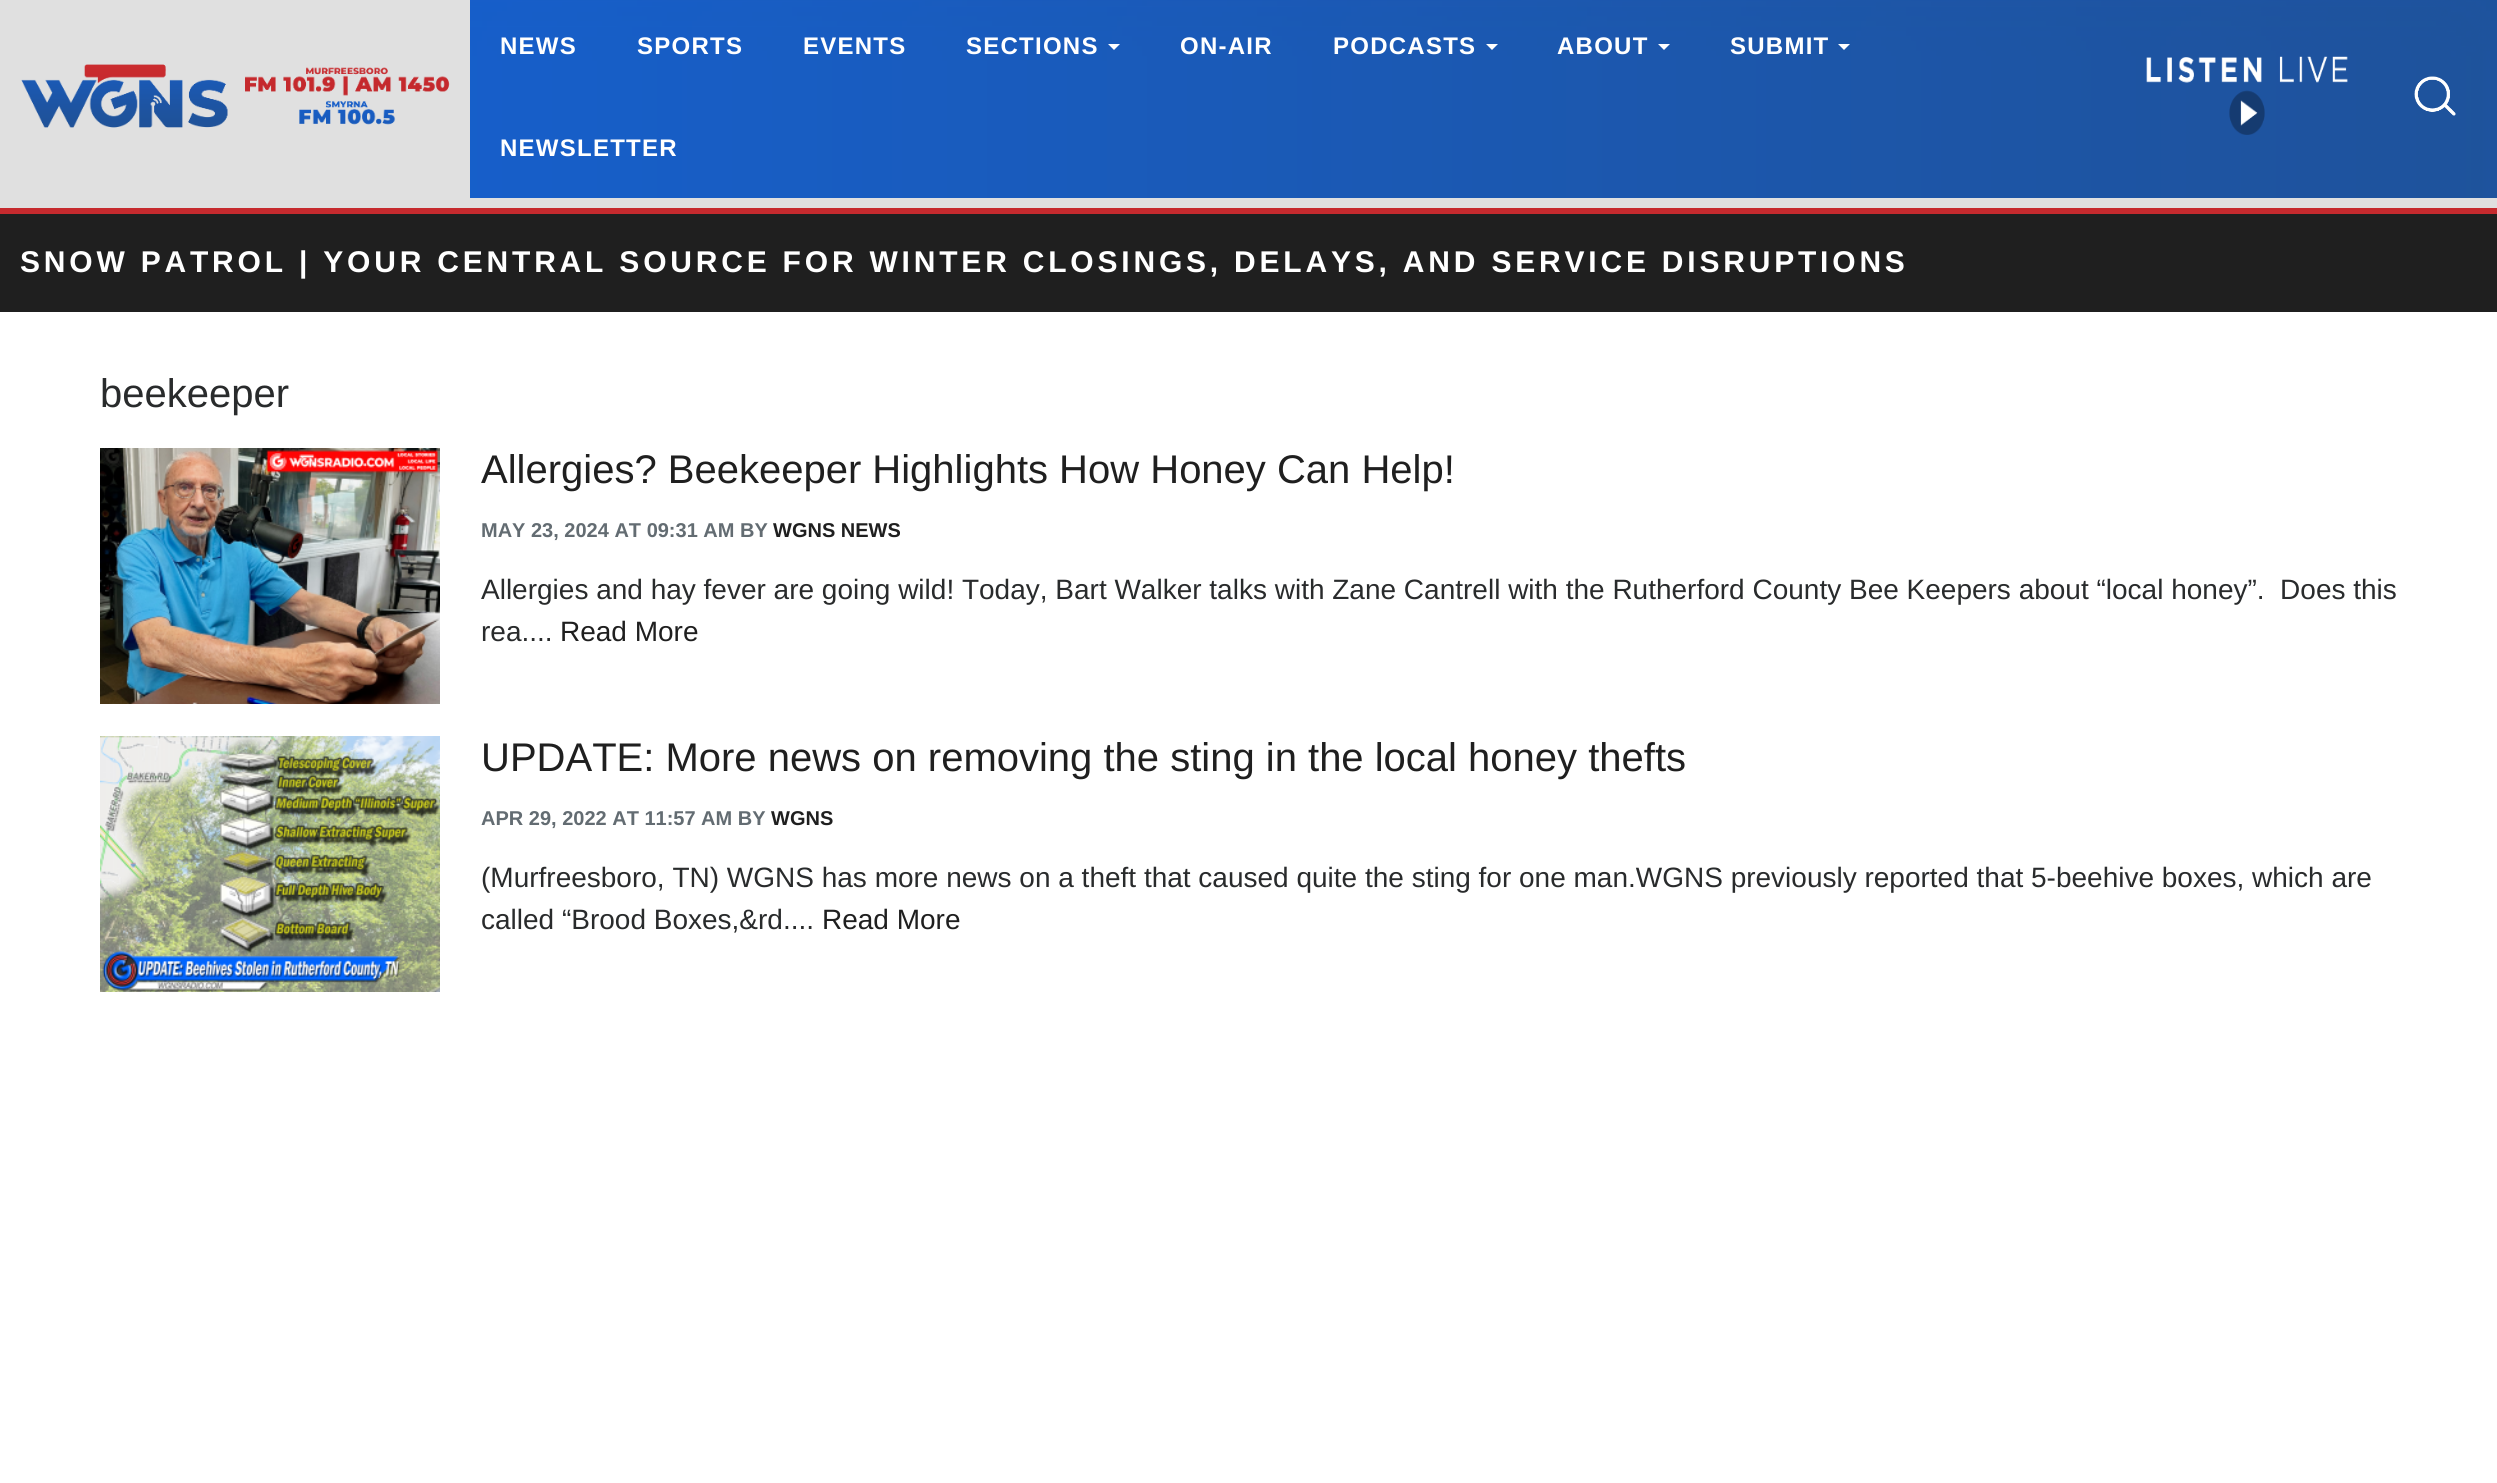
import math
import cairo

surface = cairo.ImageSurface(cairo.FORMAT_RGB24, 2497, 1483)
ctx = cairo.Context(surface)
options = cairo.FontOptions()
options.set_hint_metrics(cairo.HINT_METRICS_OFF)
options.set_hint_style(cairo.HINT_STYLE_NONE)
ctx.set_font_options(options)
ctx.set_miter_limit(4)


def spaced_text(x, y, s, letter, word):
    ctx.move_to(x, y)
    for ch in s:
        ctx.show_text(ch)
        ctx.rel_move_to(letter + word * (ch == ' '), 0)


def picture(path, x, y, w, h):
    ctx.save()
    ctx.set_source_surface(cairo.ImageSurface.create_from_png(path), x, y)
    ctx.rectangle(x, y, w, h)
    ctx.fill()
    ctx.restore()


ctx.set_source_rgb(1, 1, 1)
ctx.paint()
picture("img1.png", 470, 0, 2027, 198)
ctx.set_source_rgb(0.878, 0.878, 0.878)
ctx.rectangle(0, 198, 2497, 10)
ctx.fill()
ctx.rectangle(0, 0, 470, 198)
ctx.fill()
picture("img2.png", 21, 64, 429, 64)
ctx.select_font_face("Liberation Sans", cairo.FONT_SLANT_NORMAL, cairo.FONT_WEIGHT_BOLD)
ctx.set_font_size(24)
ctx.set_source_rgb(1, 1, 1)
spaced_text(500, 54, "NEWS", 1.25, 0)
spaced_text(637, 54, "SPORTS", 1.25, 0)
spaced_text(803, 54, "EVENTS", 1.25, 0)
spaced_text(966, 54, "SECTIONS", 1.25, 0)
ctx.new_path()
ctx.move_to(1108, 44)
ctx.line_to(1120, 44)
ctx.line_to(1114, 50)
ctx.close_path()
ctx.fill()
spaced_text(1180, 54, "ON-AIR", 1.25, 0)
spaced_text(1333, 54, "PODCASTS", 1.25, 0)
ctx.new_path()
ctx.move_to(1486, 44)
ctx.line_to(1498, 44)
ctx.line_to(1492, 50)
ctx.close_path()
ctx.fill()
spaced_text(1557, 54, "ABOUT", 1.25, 0)
ctx.new_path()
ctx.move_to(1658, 44)
ctx.line_to(1670, 44)
ctx.line_to(1664, 50)
ctx.close_path()
ctx.fill()
spaced_text(1730, 54, "SUBMIT", 1.25, 0)
ctx.new_path()
ctx.move_to(1838, 44)
ctx.line_to(1850, 44)
ctx.line_to(1844, 50)
ctx.close_path()
ctx.fill()
spaced_text(500, 156, "NEWSLETTER", 1.25, 0)
picture("img3.png", 2146, 56, 202, 79)
picture("img4.png", 2414, 76, 42, 40)
ctx.set_source_rgb(0.776, 0.165, 0.18)
ctx.rectangle(0, 208, 2497, 6)
ctx.fill()
ctx.set_source_rgb(0.122, 0.122, 0.122)
ctx.rectangle(0, 214, 2497, 98)
ctx.fill()
ctx.set_font_size(30)
ctx.set_source_rgb(1, 1, 1)
spaced_text(20, 272, "SNOW PATROL | YOUR CENTRAL SOURCE FOR WINTER CLOSINGS, DELAYS, AND SERVICE DISRUPTIONS", 3.8, 0)
ctx.select_font_face("Liberation Sans")
ctx.set_font_size(40)
ctx.set_source_rgb(0.161, 0.169, 0.173)
ctx.move_to(100, 407)
ctx.show_text("beekeeper")
picture("img5.png", 100, 448, 340, 256)
ctx.set_source_rgb(0.122, 0.122, 0.122)
ctx.move_to(481, 483)
ctx.show_text("Allergies? Beekeeper Highlights How Honey Can Help!")
ctx.select_font_face("Liberation Sans", cairo.FONT_SLANT_NORMAL, cairo.FONT_WEIGHT_BOLD)
ctx.set_font_size(20)
ctx.set_source_rgb(0.388, 0.424, 0.447)
ctx.move_to(481, 537)
ctx.show_text("MAY 23, 2024 AT 09:31 AM BY")
ctx.set_source_rgb(0.122, 0.122, 0.122)
ctx.move_to(773, 537)
ctx.show_text("WGNS NEWS")
ctx.select_font_face("Liberation Sans")
ctx.set_font_size(28)
ctx.set_source_rgb(0.161, 0.169, 0.173)
ctx.move_to(481, 599)
ctx.show_text("Allergies and hay fever are going wild! Today, Bart Walker talks with Zane Cantrell with the Rutherford County Bee Keepers about “local honey”.  Does this")
ctx.move_to(481, 641)
ctx.show_text("rea....")
ctx.set_source_rgb(0.122, 0.122, 0.122)
ctx.move_to(560, 641)
ctx.show_text("Read More")
picture("img6.png", 100, 736, 340, 256)
ctx.set_font_size(40)
ctx.move_to(481, 771)
ctx.show_text("UPDATE: More news on removing the sting in the local honey thefts")
ctx.select_font_face("Liberation Sans", cairo.FONT_SLANT_NORMAL, cairo.FONT_WEIGHT_BOLD)
ctx.set_font_size(20)
ctx.set_source_rgb(0.388, 0.424, 0.447)
ctx.move_to(481, 825)
ctx.show_text("APR 29, 2022 AT 11:57 AM BY")
ctx.set_source_rgb(0.122, 0.122, 0.122)
ctx.move_to(771, 825)
ctx.show_text("WGNS")
ctx.select_font_face("Liberation Sans")
ctx.set_font_size(28)
ctx.set_source_rgb(0.161, 0.169, 0.173)
ctx.move_to(481, 887)
ctx.show_text("(Murfreesboro, TN) WGNS has more news on a theft that caused quite the sting for one man.WGNS previously reported that 5-beehive boxes, which are")
ctx.move_to(481, 929)
ctx.show_text("called “Brood Boxes,&rd....")
ctx.set_source_rgb(0.122, 0.122, 0.122)
ctx.move_to(822, 929)
ctx.show_text("Read More")
surface.write_to_png("page.png")
